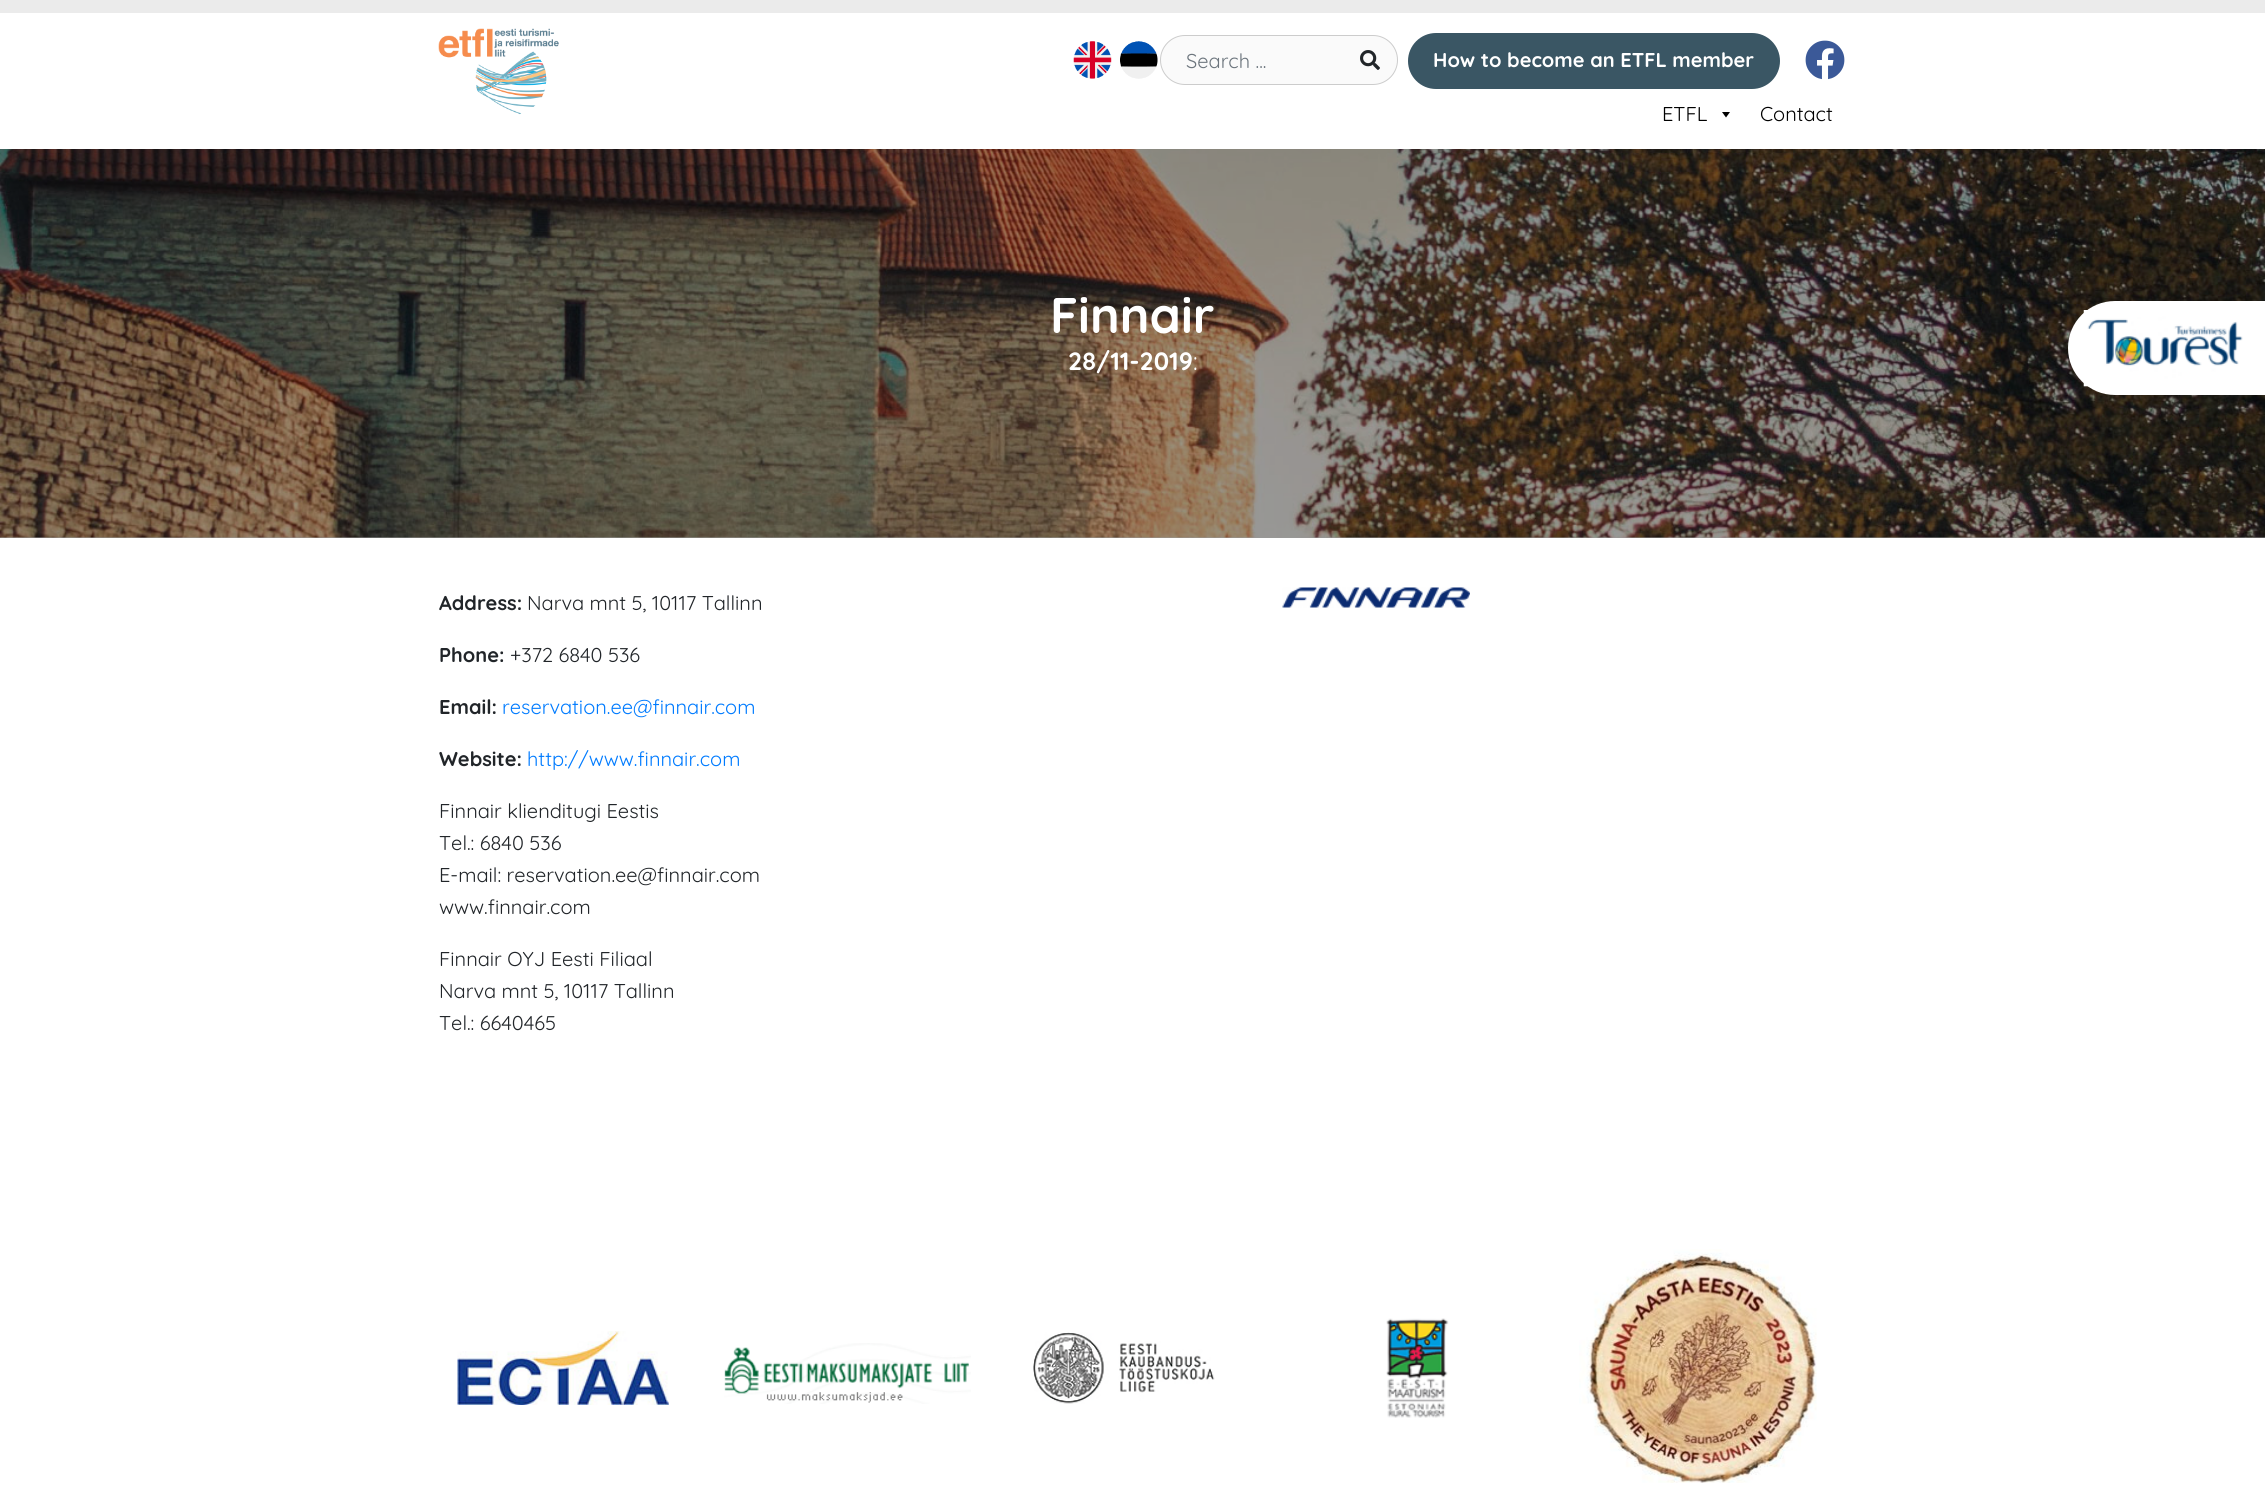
import math
import cairo

surface = cairo.ImageSurface(cairo.FORMAT_RGB24, 2265, 1508)
ctx = cairo.Context(surface)
options = cairo.FontOptions()
options.set_hint_metrics(cairo.HINT_METRICS_OFF)
options.set_hint_style(cairo.HINT_STYLE_NONE)
ctx.set_font_options(options)
ctx.set_miter_limit(4)


def round_rect(x, y, w, h, r):
    ctx.new_sub_path()
    for i, (u, v) in enumerate([(x + w - r, y + h - r), (x + r, y + h - r), (x + r, y + r), (x + w - r, y + r)]):
        ctx.arc(u, v, r, i * math.pi / 2, (i + 1) * math.pi / 2)
    ctx.close_path()


def picture(path, x, y, w, h):
    ctx.save()
    ctx.set_source_surface(cairo.ImageSurface.create_from_png(path), x, y)
    ctx.rectangle(x, y, w, h)
    ctx.fill()
    ctx.restore()


ctx.set_source_rgb(1, 1, 1)
ctx.paint()
ctx.set_source_rgb(0.6, 0.6, 0.6)
ctx.rectangle(0, 537, 2265, 1)
ctx.fill()
ctx.set_source_rgb(0.918, 0.918, 0.918)
ctx.rectangle(0, 0, 2265, 13)
ctx.fill()
picture("img1.png", 438, 28, 121, 87)
picture("img2.png", 1073, 41, 39, 38)
picture("img3.png", 1120, 41, 38, 38)
ctx.set_source_rgb(0.98, 0.98, 0.98)
round_rect(1160.5, 35.5, 237, 49, 24.5)
ctx.fill_preserve()
ctx.set_source_rgb(0.8, 0.8, 0.8)
ctx.set_line_width(1)
ctx.stroke()
ctx.select_font_face("Quicksand")
ctx.set_font_size(20)
ctx.set_source_rgb(0.424, 0.459, 0.49)
ctx.move_to(1186, 68)
ctx.show_text("Search ...")
picture("img4.png", 1360, 50, 20, 20)
ctx.set_source_rgb(0.227, 0.337, 0.392)
round_rect(1408, 33, 372, 56, 28)
ctx.fill()
ctx.select_font_face("Quicksand", cairo.FONT_SLANT_NORMAL, cairo.FONT_WEIGHT_BOLD)
ctx.set_source_rgb(1, 1, 1)
ctx.move_to(1433, 67)
ctx.show_text("How to become an ETFL member")
picture("img5.png", 1805, 40, 40, 40)
ctx.select_font_face("Quicksand")
ctx.set_source_rgb(0, 0, 0)
ctx.move_to(1662, 121)
ctx.show_text("ETFL")
ctx.new_path()
ctx.move_to(1730, 112)
ctx.line_to(1726, 117.5)
ctx.line_to(1722, 112)
ctx.close_path()
ctx.fill()
ctx.move_to(1760, 121)
ctx.show_text("Contact")
picture("img6.png", 0, 149, 2265, 389)
ctx.select_font_face("Quicksand", cairo.FONT_SLANT_NORMAL, cairo.FONT_WEIGHT_BOLD)
ctx.set_font_size(50)
ctx.set_source_rgb(1, 1, 1)
ctx.move_to(1050, 333)
ctx.show_text("Finnair")
ctx.set_font_size(25)
ctx.move_to(1068, 370)
ctx.show_text("28/11-2019")
ctx.select_font_face("Quicksand")
ctx.move_to(1193, 370)
ctx.show_text(":")
ctx.new_path()
ctx.move_to(2115, 301)
ctx.line_to(2265, 301)
ctx.line_to(2265, 395)
ctx.line_to(2115, 395)
ctx.curve_to(2089, 395, 2068, 374, 2068, 348)
ctx.curve_to(2068, 322, 2089, 301, 2115, 301)
ctx.close_path()
ctx.fill()
picture("img7.png", 2083, 310, 160, 77)
ctx.select_font_face("Quicksand", cairo.FONT_SLANT_NORMAL, cairo.FONT_WEIGHT_BOLD)
ctx.set_font_size(20)
ctx.set_source_rgb(0.129, 0.145, 0.161)
ctx.move_to(439, 610)
ctx.show_text("Address:")
ctx.select_font_face("Quicksand")
ctx.move_to(527, 610)
ctx.show_text("Narva mnt 5, 10117 Tallinn")
ctx.select_font_face("Quicksand", cairo.FONT_SLANT_NORMAL, cairo.FONT_WEIGHT_BOLD)
ctx.move_to(439, 662)
ctx.show_text("Phone:")
ctx.select_font_face("Quicksand")
ctx.move_to(510, 662)
ctx.show_text("+372 6840 536")
ctx.select_font_face("Quicksand", cairo.FONT_SLANT_NORMAL, cairo.FONT_WEIGHT_BOLD)
ctx.move_to(439, 714)
ctx.show_text("Email:")
ctx.select_font_face("Quicksand")
ctx.set_source_rgb(0, 0.482, 1)
ctx.move_to(502, 714)
ctx.show_text("reservation.ee@finnair.com")
ctx.select_font_face("Quicksand", cairo.FONT_SLANT_NORMAL, cairo.FONT_WEIGHT_BOLD)
ctx.set_source_rgb(0.129, 0.145, 0.161)
ctx.move_to(439, 766)
ctx.show_text("Website:")
ctx.select_font_face("Quicksand")
ctx.set_source_rgb(0, 0.482, 1)
ctx.move_to(527, 766)
ctx.show_text("http://www.finnair.com")
picture("img8.png", 1282, 587, 188, 21)
ctx.set_source_rgb(0.129, 0.145, 0.161)
ctx.move_to(439, 818)
ctx.show_text("Finnair klienditugi Eestis")
ctx.move_to(439, 850)
ctx.show_text("Tel.: 6840 536")
ctx.move_to(439, 882)
ctx.show_text("E-mail: reservation.ee@finnair.com")
ctx.move_to(439, 914)
ctx.show_text("www.finnair.com")
ctx.move_to(439, 966)
ctx.show_text("Finnair OYJ Eesti Filiaal")
ctx.move_to(439, 998)
ctx.show_text("Narva mnt 5, 10117 Tallinn")
ctx.move_to(439, 1030)
ctx.show_text("Tel.: 6640465")
picture("img9.png", 457, 1331, 212, 74)
picture("img10.png", 724, 1343, 247, 61)
picture("img11.png", 1033, 1332, 182, 72)
picture("img12.png", 1386, 1318, 63, 100)
picture("img13.png", 1579, 1249, 238, 234)
surface.write_to_png("page.png")
